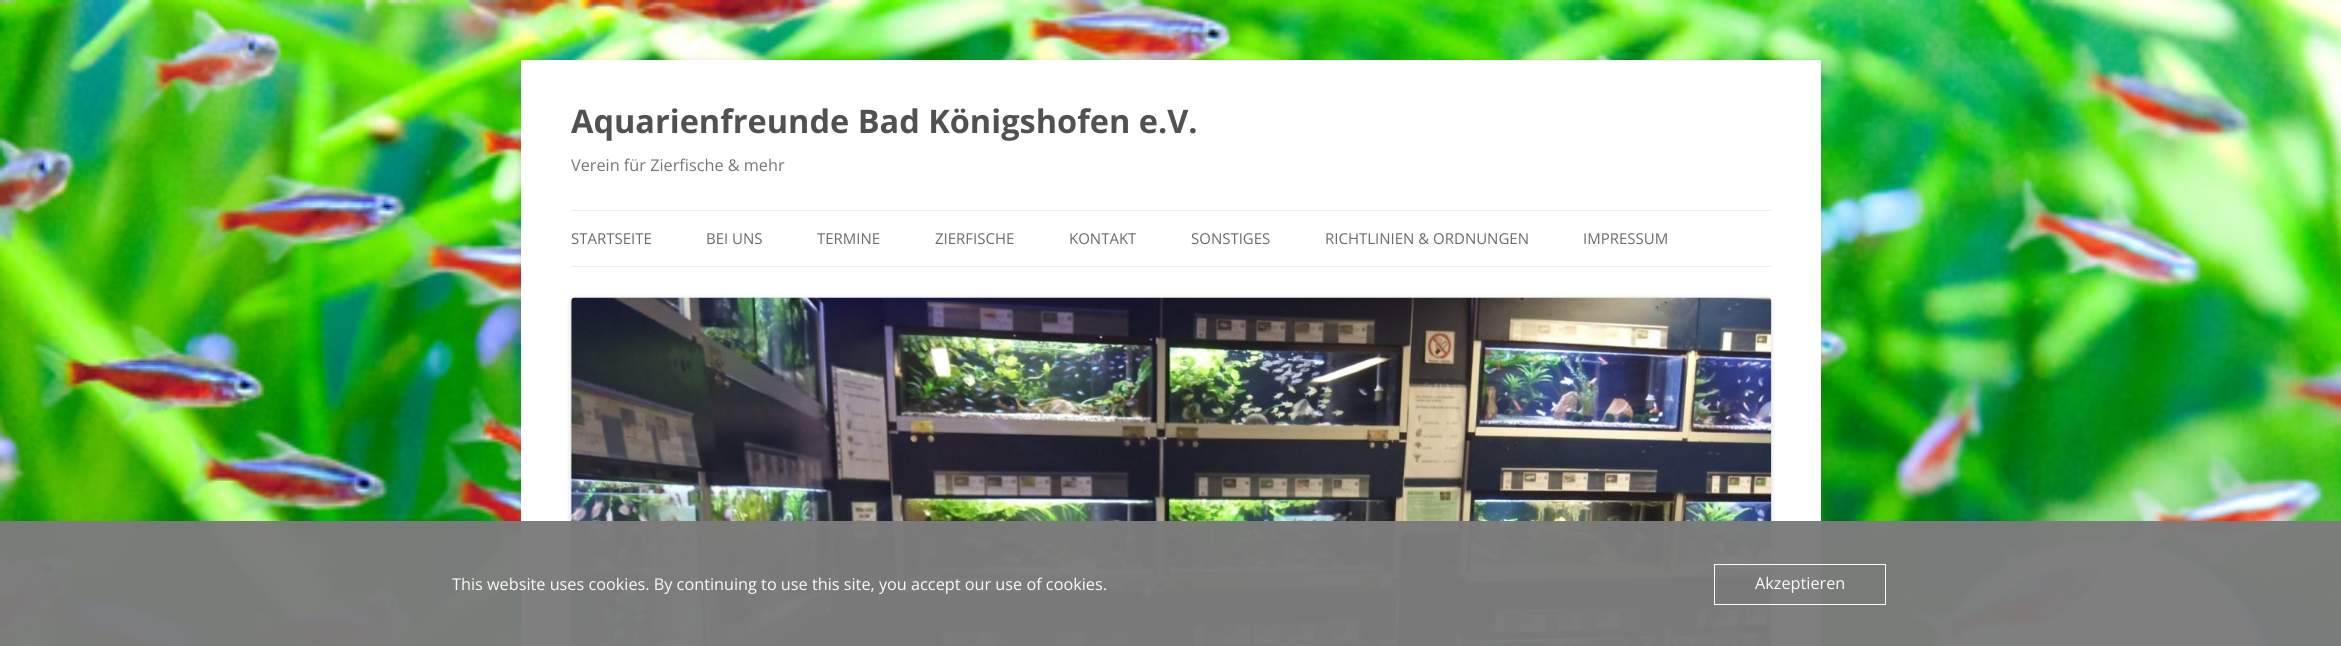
import math
import cairo

surface = cairo.ImageSurface(cairo.FORMAT_RGB24, 2341, 646)
ctx = cairo.Context(surface)
options = cairo.FontOptions()
options.set_hint_metrics(cairo.HINT_METRICS_OFF)
options.set_hint_style(cairo.HINT_STYLE_NONE)
ctx.set_font_options(options)
ctx.set_miter_limit(4)


def round_rect(x, y, w, h, r):
    ctx.new_sub_path()
    for i, (u, v) in enumerate([(x + w - r, y + h - r), (x + r, y + h - r), (x + r, y + r), (x + w - r, y + r)]):
        ctx.arc(u, v, r, i * math.pi / 2, (i + 1) * math.pi / 2)
    ctx.close_path()


def shadow(x, y, w, h, r, blur, alpha):
    ctx.push_group_with_content(cairo.CONTENT_ALPHA)
    ctx.set_operator(cairo.OPERATOR_SOURCE)
    for i in range(15, -16, -2):
        e = blur * i / 6
        if min(w, h) + 2 * e > 0:
            ctx.set_source_rgba(0, 0, 0, alpha * math.erfc((i - 1) / 8.5) / 2)
            round_rect(x - e, y - e, w + 2 * e, h + 2 * e, max(0, min(r + e + blur * .6, min(w, h) / 2 + e)))
            ctx.fill()
    ctx.mask(ctx.pop_group())


def picture(path, x, y, w, h):
    ctx.save()
    ctx.set_source_surface(cairo.ImageSurface.create_from_png(path), x, y)
    ctx.rectangle(x, y, w, h)
    ctx.fill()
    ctx.restore()


ctx.set_source_rgb(1, 1, 1)
ctx.paint()
picture("img1.png", 0, 0, 2341, 646)
ctx.set_source_rgb(0.392, 0.392, 0.392)
shadow(521, 63, 1300, 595, 0, 4, 0.3)
ctx.set_source_rgb(1, 1, 1)
ctx.rectangle(521, 60, 1300, 586)
ctx.fill()
ctx.select_font_face("Open Sans", cairo.FONT_SLANT_NORMAL, cairo.FONT_WEIGHT_BOLD)
ctx.set_font_size(32.5)
ctx.set_source_rgb(0.318, 0.318, 0.318)
ctx.move_to(571, 133)
ctx.show_text("Aquarienfreunde Bad Königshofen e.V.")
ctx.select_font_face("Open Sans")
ctx.set_font_size(16.25)
ctx.set_source_rgb(0.459, 0.459, 0.459)
ctx.move_to(571, 171)
ctx.show_text("Verein für Zierfische & mehr")
ctx.set_source_rgb(0.929, 0.929, 0.929)
ctx.rectangle(571, 210, 1200, 1)
ctx.fill()
ctx.rectangle(571, 266, 1200, 1)
ctx.fill()
ctx.set_font_size(15)
ctx.set_source_rgb(0.416, 0.416, 0.416)
ctx.move_to(571, 244)
ctx.show_text("STARTSEITE")
ctx.move_to(706, 244)
ctx.show_text("BEI UNS")
ctx.move_to(817, 244)
ctx.show_text("TERMINE")
ctx.move_to(935, 244)
ctx.show_text("ZIERFISCHE")
ctx.move_to(1069, 244)
ctx.show_text("KONTAKT")
ctx.move_to(1191, 244)
ctx.show_text("SONSTIGES")
ctx.move_to(1325, 244)
ctx.show_text("RICHTLINIEN & ORDNUNGEN")
ctx.move_to(1583, 244)
ctx.show_text("IMPRESSUM")
ctx.set_source_rgb(0, 0, 0)
shadow(571, 299, 1200, 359, 4, 2.5, 0.2)
picture("img2.png", 571, 297, 1201, 349)
ctx.set_source_rgba(0.486, 0.486, 0.486, 0.97)
ctx.rectangle(0, 521, 2341, 125)
ctx.fill()
ctx.set_font_size(16.25)
ctx.set_source_rgb(0.984, 0.984, 0.984)
ctx.move_to(452, 590)
ctx.show_text("This website uses cookies. By continuing to use this site, you accept our use of cookies.")
ctx.rectangle(1714.5, 564.5, 171, 40)
ctx.set_source_rgba(1, 1, 1, 0.97)
ctx.set_line_width(1)
ctx.stroke()
ctx.set_source_rgb(0.984, 0.984, 0.984)
ctx.move_to(1755, 589)
ctx.show_text("Akzeptieren")
surface.write_to_png("page.png")
